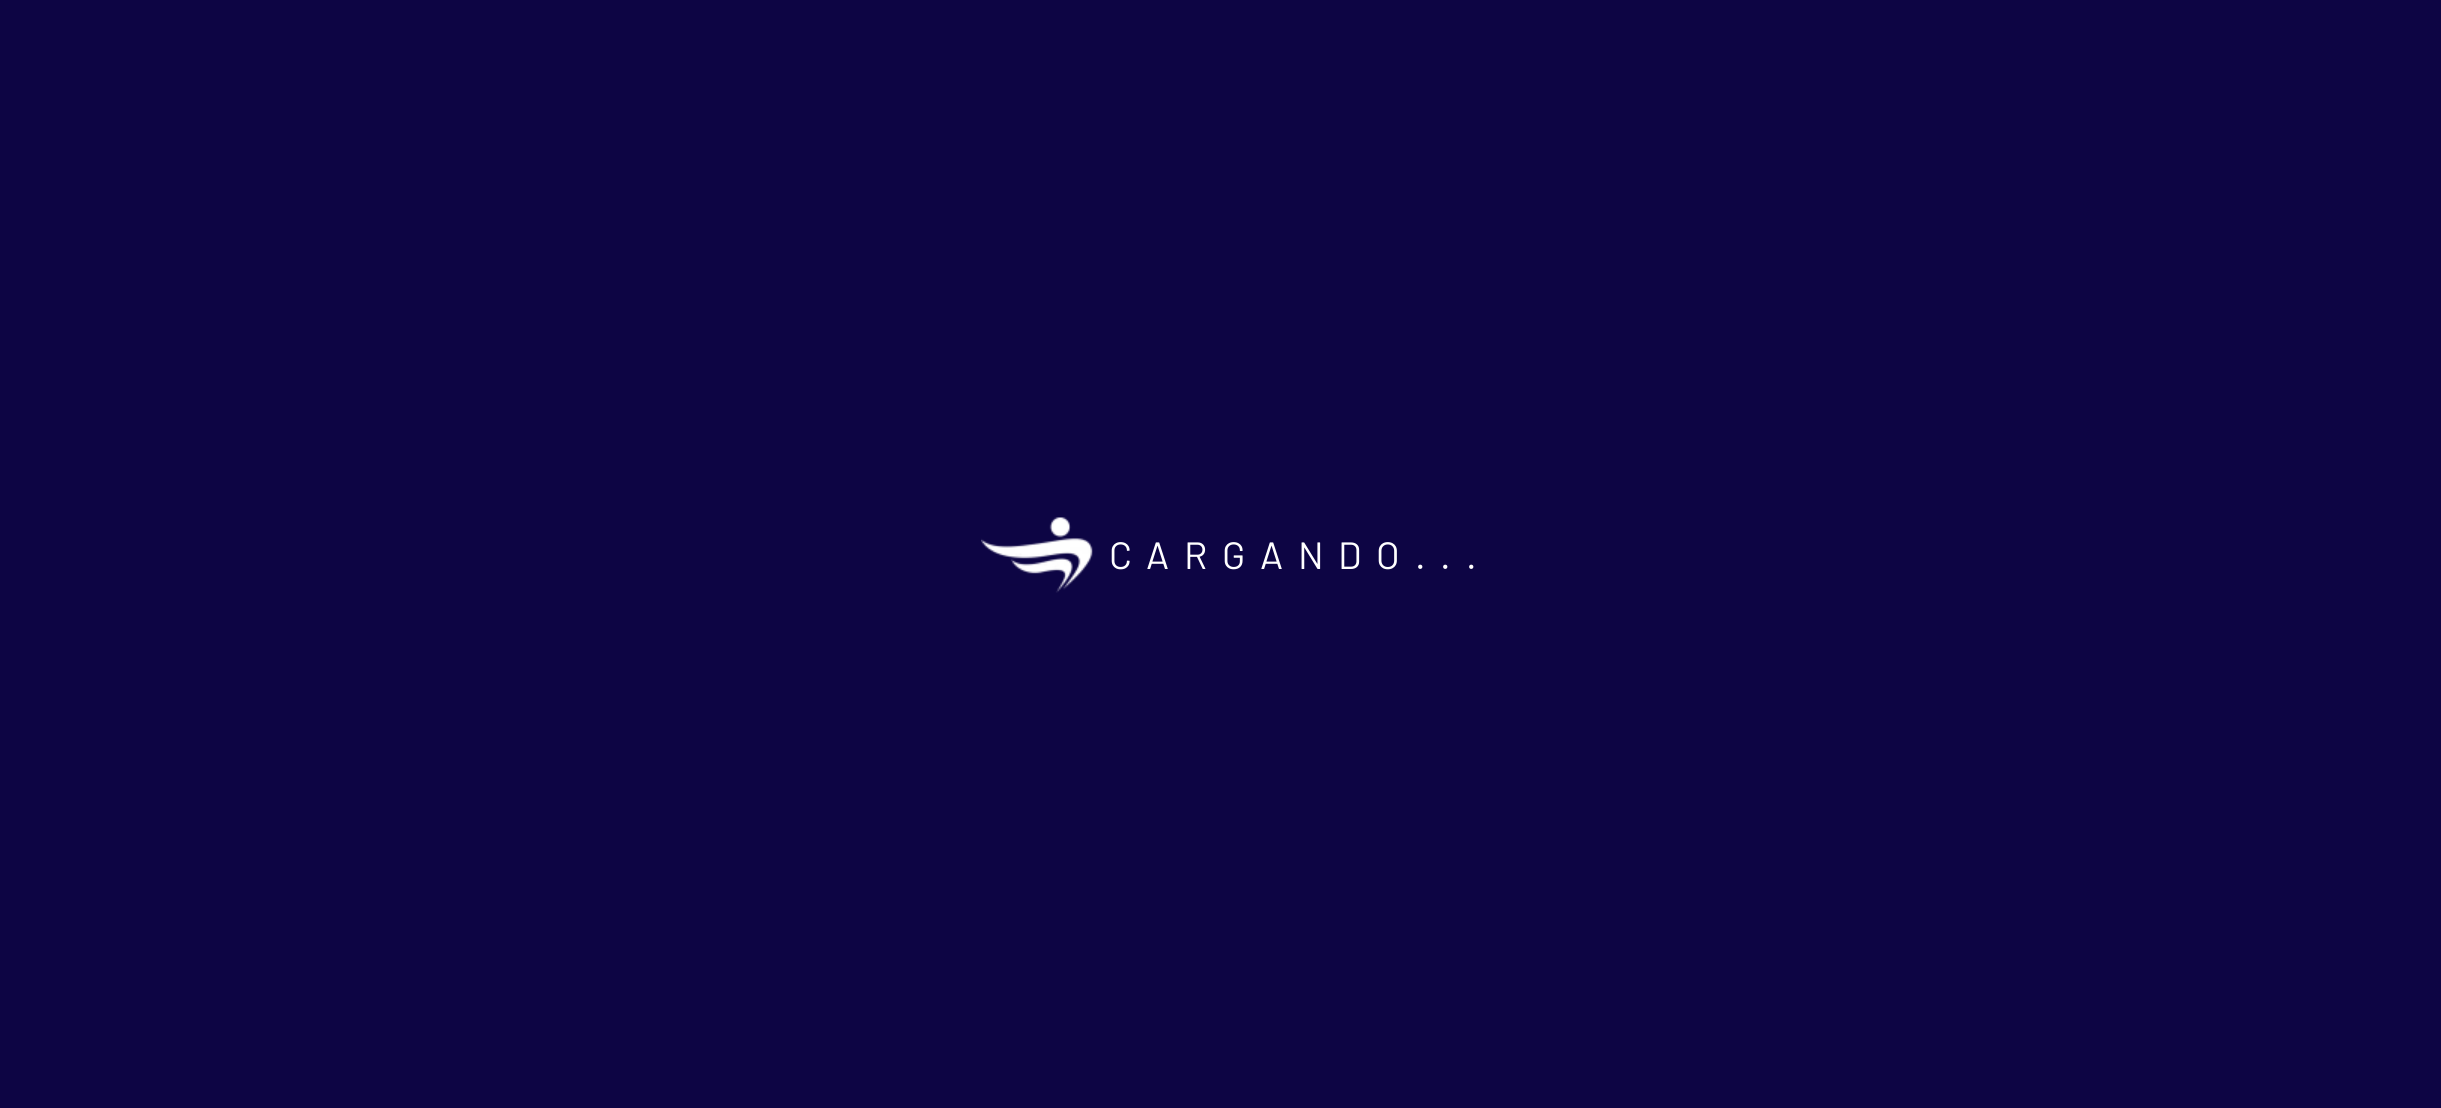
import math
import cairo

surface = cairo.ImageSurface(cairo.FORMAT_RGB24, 2441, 1108)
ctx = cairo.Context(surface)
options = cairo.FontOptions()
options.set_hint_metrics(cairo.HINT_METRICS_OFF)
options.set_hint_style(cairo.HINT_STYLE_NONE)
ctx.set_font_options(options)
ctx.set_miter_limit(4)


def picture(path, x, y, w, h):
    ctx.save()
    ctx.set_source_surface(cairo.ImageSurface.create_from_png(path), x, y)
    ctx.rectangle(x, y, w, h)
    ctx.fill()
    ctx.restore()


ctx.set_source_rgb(0.051, 0.02, 0.267)
ctx.paint()
picture("img1.png", 981, 517, 112, 76)
ctx.select_font_face("Barlow")
ctx.set_font_size(38)
ctx.set_source_rgb(1, 1, 1)
ctx.move_to(1109, 569)
ctx.show_text("C")
ctx.move_to(1146, 569)
ctx.show_text("A")
ctx.move_to(1184, 569)
ctx.show_text("R")
ctx.move_to(1222, 569)
ctx.show_text("G")
ctx.move_to(1260, 569)
ctx.show_text("A")
ctx.move_to(1298, 569)
ctx.show_text("N")
ctx.move_to(1338, 569)
ctx.show_text("D")
ctx.move_to(1376, 569)
ctx.show_text("O")
ctx.move_to(1415, 569)
ctx.show_text(".")
ctx.move_to(1440, 569)
ctx.show_text(".")
ctx.move_to(1466, 569)
ctx.show_text(".")
surface.write_to_png("page.png")
